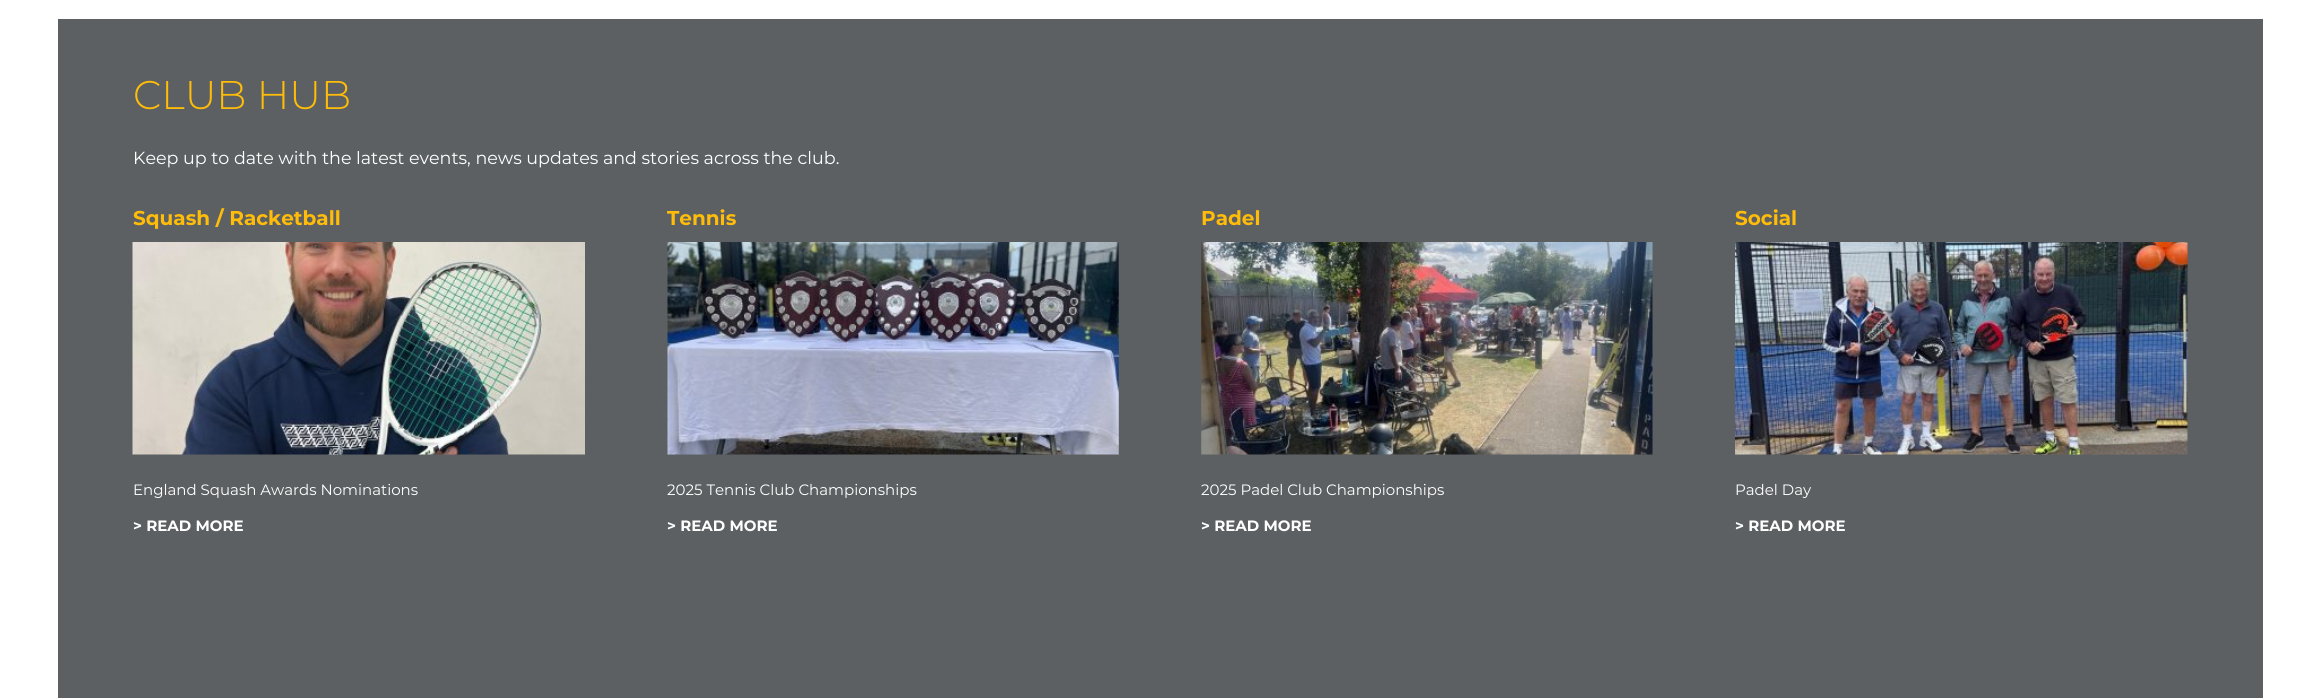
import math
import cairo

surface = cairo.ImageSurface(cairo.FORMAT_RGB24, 2319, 698)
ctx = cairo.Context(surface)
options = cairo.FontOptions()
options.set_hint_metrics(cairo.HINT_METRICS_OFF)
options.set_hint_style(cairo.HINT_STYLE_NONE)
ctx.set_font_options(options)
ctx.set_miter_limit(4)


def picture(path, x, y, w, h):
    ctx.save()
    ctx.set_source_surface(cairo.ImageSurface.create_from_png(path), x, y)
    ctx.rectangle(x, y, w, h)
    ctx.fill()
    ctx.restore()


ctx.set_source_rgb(1, 1, 1)
ctx.paint()
ctx.set_source_rgb(0.361, 0.376, 0.388)
ctx.rectangle(58, 19, 2205, 679)
ctx.fill()
ctx.select_font_face("Montserrat Light")
ctx.set_font_size(40)
ctx.set_source_rgb(1, 0.737, 0.035)
ctx.move_to(133, 109)
ctx.show_text("CLUB HUB")
ctx.select_font_face("Montserrat")
ctx.set_font_size(17.5)
ctx.set_source_rgb(1, 1, 1)
ctx.move_to(133, 164)
ctx.show_text("Keep up to date with the latest events, news updates and stories across the club.")
ctx.select_font_face("Montserrat", cairo.FONT_SLANT_NORMAL, cairo.FONT_WEIGHT_BOLD)
ctx.set_font_size(20)
ctx.set_source_rgb(1, 0.737, 0.035)
ctx.move_to(133, 225)
ctx.show_text("Squash / Racketball")
picture("img1.png", 132, 242, 453, 213)
ctx.select_font_face("Montserrat")
ctx.set_font_size(15)
ctx.set_source_rgb(1, 1, 1)
ctx.move_to(133, 495)
ctx.show_text("England Squash Awards Nominations")
ctx.select_font_face("Montserrat", cairo.FONT_SLANT_NORMAL, cairo.FONT_WEIGHT_BOLD)
ctx.move_to(133, 531)
ctx.show_text("> READ MORE")
ctx.set_font_size(20)
ctx.set_source_rgb(1, 0.737, 0.035)
ctx.move_to(667, 225)
ctx.show_text("Tennis")
picture("img2.png", 667, 242, 452, 213)
ctx.select_font_face("Montserrat")
ctx.set_font_size(15)
ctx.set_source_rgb(1, 1, 1)
ctx.move_to(667, 495)
ctx.show_text("2025 Tennis Club Championships")
ctx.select_font_face("Montserrat", cairo.FONT_SLANT_NORMAL, cairo.FONT_WEIGHT_BOLD)
ctx.move_to(667, 531)
ctx.show_text("> READ MORE")
ctx.set_font_size(20)
ctx.set_source_rgb(1, 0.737, 0.035)
ctx.move_to(1201, 225)
ctx.show_text("Padel")
picture("img3.png", 1201, 242, 452, 213)
ctx.select_font_face("Montserrat")
ctx.set_font_size(15)
ctx.set_source_rgb(1, 1, 1)
ctx.move_to(1201, 495)
ctx.show_text("2025 Padel Club Championships")
ctx.select_font_face("Montserrat", cairo.FONT_SLANT_NORMAL, cairo.FONT_WEIGHT_BOLD)
ctx.move_to(1201, 531)
ctx.show_text("> READ MORE")
ctx.set_font_size(20)
ctx.set_source_rgb(1, 0.737, 0.035)
ctx.move_to(1735, 225)
ctx.show_text("Social")
picture("img4.png", 1735, 242, 453, 213)
ctx.select_font_face("Montserrat")
ctx.set_font_size(15)
ctx.set_source_rgb(1, 1, 1)
ctx.move_to(1735, 495)
ctx.show_text("Padel Day")
ctx.select_font_face("Montserrat", cairo.FONT_SLANT_NORMAL, cairo.FONT_WEIGHT_BOLD)
ctx.move_to(1735, 531)
ctx.show_text("> READ MORE")
surface.write_to_png("page.png")
